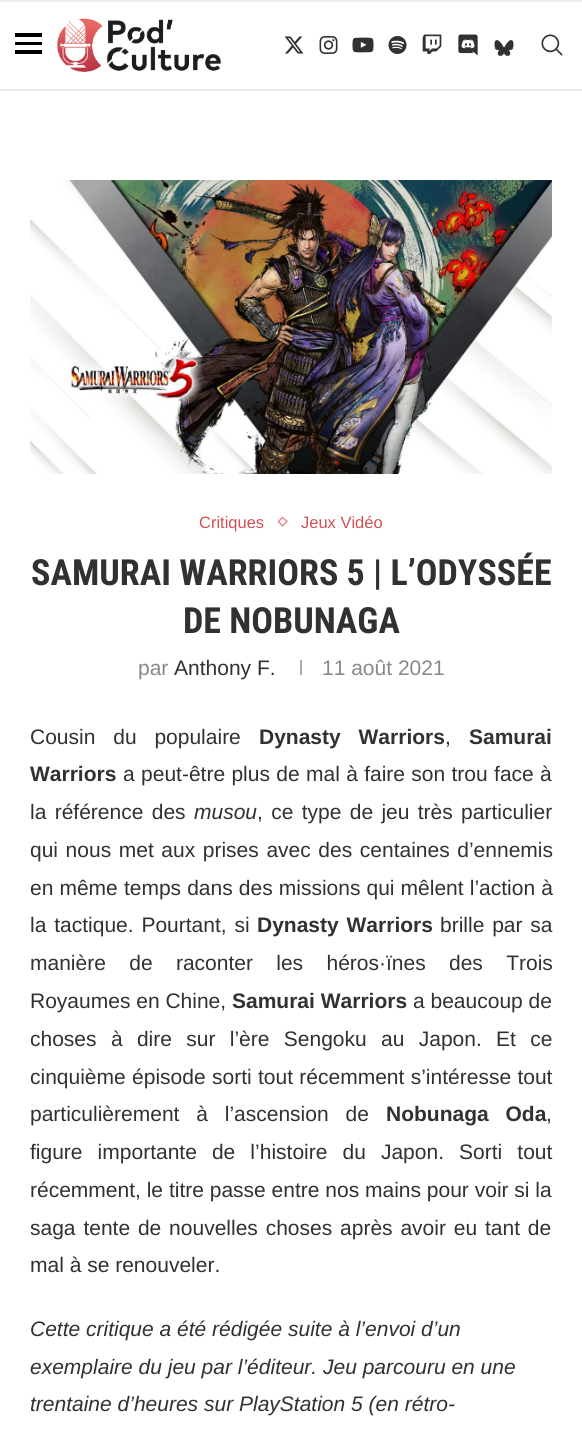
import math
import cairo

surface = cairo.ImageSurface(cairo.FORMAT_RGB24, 582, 1438)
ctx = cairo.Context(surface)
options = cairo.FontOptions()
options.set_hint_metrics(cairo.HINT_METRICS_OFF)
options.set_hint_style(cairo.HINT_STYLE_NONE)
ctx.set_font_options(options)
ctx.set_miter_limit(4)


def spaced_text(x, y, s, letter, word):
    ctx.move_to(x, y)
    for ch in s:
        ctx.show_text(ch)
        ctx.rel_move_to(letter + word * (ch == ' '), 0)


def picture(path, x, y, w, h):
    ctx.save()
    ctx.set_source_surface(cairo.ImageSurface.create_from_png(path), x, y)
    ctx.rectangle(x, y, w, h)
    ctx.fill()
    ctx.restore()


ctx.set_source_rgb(1, 1, 1)
ctx.paint()
ctx.set_source_rgb(0.925, 0.925, 0.925)
ctx.rectangle(0, 0, 582, 2)
ctx.fill()
ctx.rectangle(0, 89, 582, 2)
ctx.fill()
ctx.set_source_rgb(0, 0, 0)
ctx.rectangle(15, 33, 27, 4)
ctx.fill()
ctx.rectangle(15, 42, 27, 3)
ctx.fill()
ctx.rectangle(15, 50, 27, 4)
ctx.fill()
picture("img1.png", 57, 18, 164, 54)
picture("img2.png", 284, 36, 20, 18)
picture("img3.png", 319, 36, 19, 18)
picture("img4.png", 352, 37, 22, 16)
picture("img5.png", 388, 36, 19, 18)
picture("img6.png", 422, 34, 20, 20)
picture("img7.png", 458, 34, 20, 22)
picture("img8.png", 494, 40, 20, 16)
picture("img9.png", 541, 34, 22, 22)
picture("img10.png", 30, 180, 522, 294)
ctx.select_font_face("Liberation Sans")
ctx.set_font_size(16.5)
ctx.set_source_rgb(0.824, 0.31, 0.333)
ctx.move_to(199, 528)
ctx.show_text("Critiques")
ctx.new_path()
ctx.move_to(282.5, 517.5)
ctx.line_to(287, 521.5)
ctx.line_to(282.5, 526)
ctx.line_to(278.5, 521.5)
ctx.close_path()
ctx.set_source_rgb(0.886, 0.553, 0.569)
ctx.set_line_width(1.5)
ctx.stroke()
ctx.set_source_rgb(0.824, 0.31, 0.333)
ctx.move_to(301, 528)
ctx.show_text("Jeux Vidéo")
ctx.select_font_face("Roboto Condensed", cairo.FONT_SLANT_NORMAL, cairo.FONT_WEIGHT_BOLD)
ctx.set_font_size(36)
ctx.set_source_rgb(0.192, 0.192, 0.192)
ctx.move_to(31, 585)
ctx.show_text("SAMURAI WARRIORS 5 | L’ODYSSÉE")
ctx.move_to(183, 633)
ctx.show_text("DE NOBUNAGA")
ctx.select_font_face("Liberation Sans")
ctx.set_font_size(21)
ctx.set_source_rgb(0.533, 0.533, 0.533)
ctx.move_to(138, 675)
ctx.show_text("par")
ctx.set_source_rgb(0.192, 0.192, 0.192)
ctx.move_to(174, 675)
ctx.show_text("Anthony F.")
ctx.set_source_rgb(0.675, 0.675, 0.675)
ctx.rectangle(300, 660, 2, 15)
ctx.fill()
ctx.set_source_rgb(0.533, 0.533, 0.533)
ctx.move_to(322, 675)
ctx.show_text("11 août 2021")
ctx.set_source_rgb(0.192, 0.192, 0.192)
spaced_text(30, 744, "Cousin du populaire", 0, 12)
ctx.select_font_face("Liberation Sans", cairo.FONT_SLANT_NORMAL, cairo.FONT_WEIGHT_BOLD)
spaced_text(259, 744, "Dynasty Warriors", 0, 12)
ctx.select_font_face("Liberation Sans")
ctx.move_to(445, 744)
ctx.show_text(",")
ctx.select_font_face("Liberation Sans", cairo.FONT_SLANT_NORMAL, cairo.FONT_WEIGHT_BOLD)
ctx.move_to(469, 744)
ctx.show_text("Samurai")
ctx.move_to(30, 781)
ctx.show_text("Warriors")
ctx.select_font_face("Liberation Sans")
spaced_text(123, 781, "a peut-être plus de mal à faire son trou face à", 0, 0.5)
spaced_text(30, 819, "la référence des", 0, 2.5)
ctx.select_font_face("Liberation Sans", cairo.FONT_SLANT_ITALIC)
ctx.move_to(194, 819)
ctx.show_text("musou")
ctx.select_font_face("Liberation Sans")
spaced_text(257, 819, ", ce type de jeu très particulier", 0, 2.5)
spaced_text(30, 857, "qui nous met aux prises avec des centaines d’ennemis", 0, 1.75)
spaced_text(30, 895, "en même temps dans des missions qui mêlent l’action à", 0, 0.25)
spaced_text(30, 932, "la tactique. Pourtant, si", 0, 2)
ctx.select_font_face("Liberation Sans", cairo.FONT_SLANT_NORMAL, cairo.FONT_WEIGHT_BOLD)
spaced_text(257, 932, "Dynasty Warriors", 0, 2)
ctx.select_font_face("Liberation Sans")
spaced_text(440, 932, "brille par sa", 0, 2)
spaced_text(30, 970, "manière de raconter les héros·ïnes des Trois", 0, 17.5)
ctx.move_to(30, 1008)
ctx.show_text("Royaumes en Chine,")
ctx.select_font_face("Liberation Sans", cairo.FONT_SLANT_NORMAL, cairo.FONT_WEIGHT_BOLD)
ctx.move_to(232, 1008)
ctx.show_text("Samurai Warriors")
ctx.select_font_face("Liberation Sans")
ctx.move_to(413, 1008)
ctx.show_text("a beaucoup de")
spaced_text(30, 1046, "choses à dire sur l’ère Sengoku au Japon. Et ce", 0, 8.5)
spaced_text(30, 1084, "cinquième épisode sorti tout récemment s’intéresse tout", 0, 0.5)
spaced_text(30, 1121, "particulièrement à l’ascension de", 0, 11)
ctx.select_font_face("Liberation Sans", cairo.FONT_SLANT_NORMAL, cairo.FONT_WEIGHT_BOLD)
spaced_text(386, 1121, "Nobunaga Oda", 0, 11)
ctx.select_font_face("Liberation Sans")
ctx.move_to(546, 1121)
ctx.show_text(",")
spaced_text(30, 1159, "figure importante de l’histoire du Japon. Sorti tout", 0, 9.25)
ctx.move_to(30, 1197)
ctx.show_text("récemment, le titre passe entre nos mains pour voir si la")
spaced_text(30, 1235, "saga tente de nouvelles choses après avoir eu tant de", 0, 2)
ctx.move_to(30, 1272)
ctx.show_text("mal à se renouveler.")
ctx.select_font_face("Liberation Sans", cairo.FONT_SLANT_ITALIC)
ctx.move_to(30, 1336)
ctx.show_text("Cette critique a été rédigée suite à l’envoi d’un")
ctx.move_to(30, 1374)
ctx.show_text("exemplaire du jeu par l’éditeur. Jeu parcouru en une")
ctx.move_to(30, 1411)
ctx.show_text("trentaine d’heures sur PlayStation 5 (en rétro-")
surface.write_to_png("page.png")
